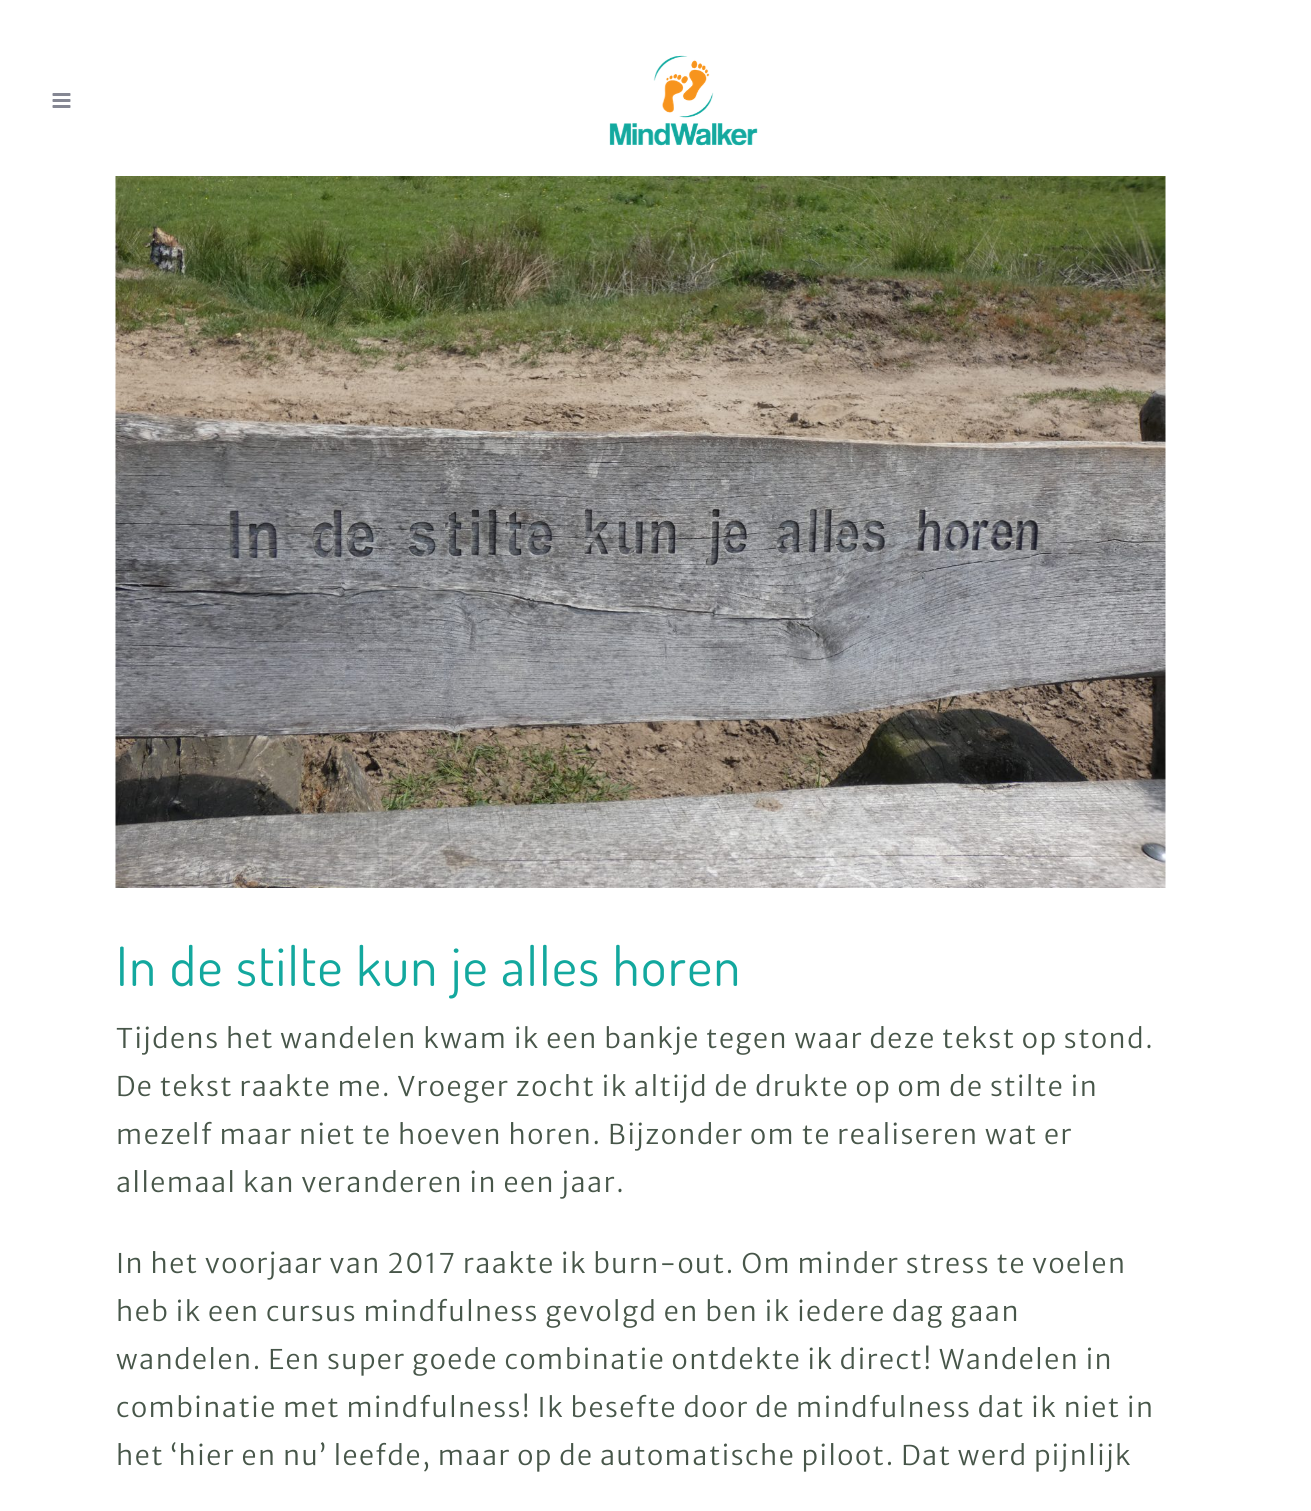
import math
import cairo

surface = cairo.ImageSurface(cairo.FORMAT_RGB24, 1311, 1511)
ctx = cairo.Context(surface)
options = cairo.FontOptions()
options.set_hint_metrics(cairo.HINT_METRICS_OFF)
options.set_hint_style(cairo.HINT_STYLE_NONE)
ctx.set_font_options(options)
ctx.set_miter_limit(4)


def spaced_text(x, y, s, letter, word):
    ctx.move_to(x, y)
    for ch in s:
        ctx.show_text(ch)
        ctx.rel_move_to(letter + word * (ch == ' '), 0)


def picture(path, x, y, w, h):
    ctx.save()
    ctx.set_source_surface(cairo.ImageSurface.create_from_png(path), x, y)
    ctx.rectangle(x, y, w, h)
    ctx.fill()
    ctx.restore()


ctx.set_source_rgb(1, 1, 1)
ctx.paint()
picture("img1.png", 52, 93, 19, 15)
picture("img2.png", 609, 55, 149, 91)
picture("img3.png", 115, 176, 1051, 712)
ctx.select_font_face("Dosis")
ctx.set_font_size(54)
ctx.set_source_rgb(0.075, 0.659, 0.62)
spaced_text(116, 986, "In de stilte kun je alles horen", 1.5, 0)
ctx.select_font_face("Merriweather Sans Light")
ctx.set_font_size(27)
ctx.set_source_rgb(0.278, 0.337, 0.286)
spaced_text(116, 1048, "Tijdens het wandelen kwam ik een bankje tegen waar deze tekst op stond.", 1.5, 0)
spaced_text(116, 1096, "De tekst raakte me. Vroeger zocht ik altijd de drukte op om de stilte in", 1.5, 0)
spaced_text(116, 1144, "mezelf maar niet te hoeven horen. Bijzonder om te realiseren wat er", 1.5, 0)
spaced_text(116, 1192, "allemaal kan veranderen in een jaar.", 1.5, 0)
spaced_text(116, 1273, "In het voorjaar van 2017 raakte ik burn-out. Om minder stress te voelen", 1.5, 0)
spaced_text(116, 1321, "heb ik een cursus mindfulness gevolgd en ben ik iedere dag gaan", 1.5, 0)
spaced_text(116, 1369, "wandelen. Een super goede combinatie ontdekte ik direct! Wandelen in", 1.5, 0)
spaced_text(116, 1417, "combinatie met mindfulness! Ik besefte door de mindfulness dat ik niet in", 1.5, 0)
spaced_text(116, 1465, "het ‘hier en nu’ leefde, maar op de automatische piloot. Dat werd pijnlijk", 1.5, 0)
surface.write_to_png("page.png")
